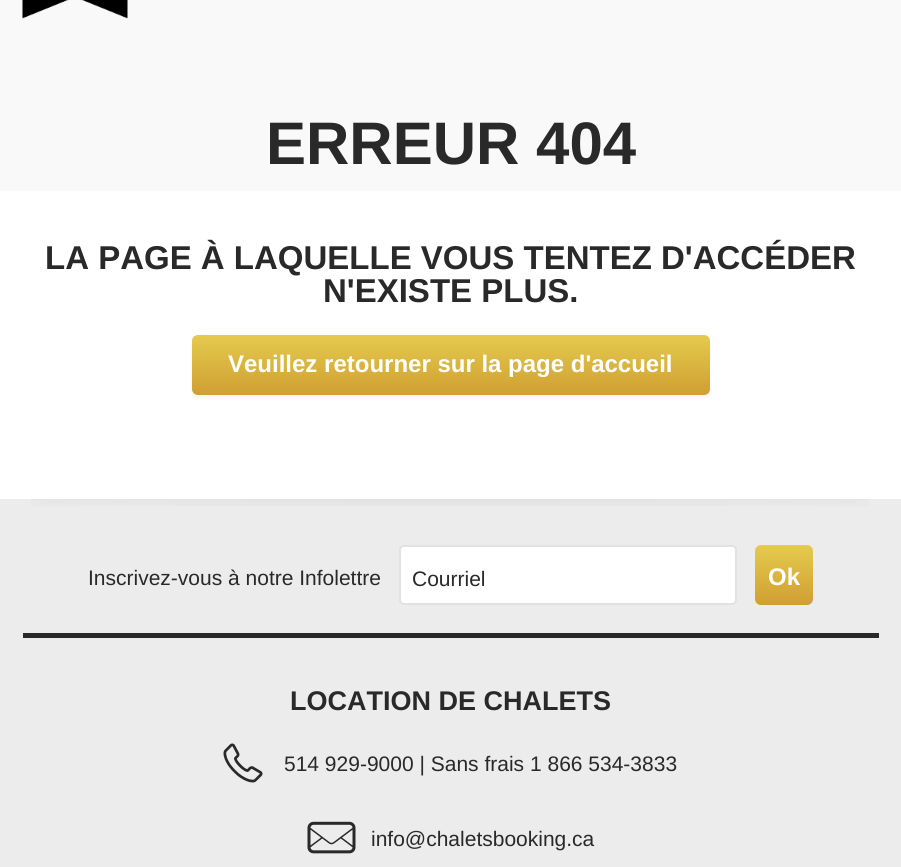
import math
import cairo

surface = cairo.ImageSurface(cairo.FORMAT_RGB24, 901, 867)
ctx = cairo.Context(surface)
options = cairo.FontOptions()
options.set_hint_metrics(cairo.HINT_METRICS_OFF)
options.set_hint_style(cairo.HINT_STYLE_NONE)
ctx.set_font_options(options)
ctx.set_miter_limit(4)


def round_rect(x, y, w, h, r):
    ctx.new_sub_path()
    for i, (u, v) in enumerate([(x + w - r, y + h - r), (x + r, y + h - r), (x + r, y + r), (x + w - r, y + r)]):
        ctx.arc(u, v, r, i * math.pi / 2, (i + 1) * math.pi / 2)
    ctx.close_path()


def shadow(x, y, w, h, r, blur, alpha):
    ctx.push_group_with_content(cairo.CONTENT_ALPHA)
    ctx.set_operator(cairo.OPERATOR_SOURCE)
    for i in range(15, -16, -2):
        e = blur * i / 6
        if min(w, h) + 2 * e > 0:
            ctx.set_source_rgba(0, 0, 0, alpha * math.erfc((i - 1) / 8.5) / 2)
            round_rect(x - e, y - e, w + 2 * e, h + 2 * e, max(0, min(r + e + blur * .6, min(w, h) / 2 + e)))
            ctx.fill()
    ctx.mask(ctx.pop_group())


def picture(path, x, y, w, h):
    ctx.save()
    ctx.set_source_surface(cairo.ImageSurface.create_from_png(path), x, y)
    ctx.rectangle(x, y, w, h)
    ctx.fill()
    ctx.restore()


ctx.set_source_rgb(1, 1, 1)
ctx.paint()
ctx.set_source_rgb(0.976, 0.976, 0.976)
ctx.rectangle(0, 0, 901, 191)
ctx.fill()
picture("img1.png", 22, 0, 106, 19)
ctx.select_font_face("Liberation Sans", cairo.FONT_SLANT_NORMAL, cairo.FONT_WEIGHT_BOLD)
ctx.set_font_size(60)
ctx.set_source_rgb(0.161, 0.161, 0.161)
ctx.move_to(266, 164)
ctx.show_text("ERREUR 404")
ctx.set_font_size(33)
ctx.move_to(45, 269)
ctx.show_text("LA PAGE À LAQUELLE VOUS TENTEZ D'ACCÉDER")
ctx.move_to(323, 302)
ctx.show_text("N'EXISTE PLUS.")
ctx.set_source_rgb(0.608, 0.608, 0.608)
shadow(192, 338, 518, 60, 6, 1, 0.1)
gradient = cairo.LinearGradient(451, 334, 451, 395)
gradient.add_color_stop_rgba(0, 0.898, 0.796, 0.306, 1)
gradient.add_color_stop_rgba(1, 0.812, 0.624, 0.196, 1)
ctx.set_source(gradient)
round_rect(192, 335, 518, 60, 6)
ctx.fill()
ctx.set_font_size(24)
ctx.set_source_rgb(1, 1, 1)
ctx.move_to(228, 372)
ctx.show_text("Veuillez retourner sur la page d'accueil")
ctx.set_source_rgb(0.925, 0.925, 0.925)
ctx.rectangle(0, 499, 901, 368)
ctx.fill()
picture("img2.png", 31, 499, 838, 7)
ctx.select_font_face("Liberation Sans")
ctx.set_font_size(21)
ctx.set_source_rgb(0.161, 0.161, 0.161)
ctx.move_to(88, 585)
ctx.show_text("Inscrivez-vous à notre Infolettre")
ctx.set_source_rgb(1, 1, 1)
round_rect(400, 546, 336, 58, 4)
ctx.fill_preserve()
ctx.set_source_rgb(0.886, 0.886, 0.886)
ctx.stroke()
ctx.set_source_rgb(0.161, 0.161, 0.161)
ctx.move_to(412, 586)
ctx.show_text("Courriel")
gradient = cairo.LinearGradient(784, 545, 784, 605)
gradient.add_color_stop_rgba(0, 0.898, 0.796, 0.306, 1)
gradient.add_color_stop_rgba(1, 0.812, 0.624, 0.196, 1)
ctx.set_source(gradient)
round_rect(755, 545, 58, 60, 6)
ctx.fill()
ctx.select_font_face("Liberation Sans", cairo.FONT_SLANT_NORMAL, cairo.FONT_WEIGHT_BOLD)
ctx.set_font_size(24)
ctx.set_source_rgb(1, 1, 1)
ctx.move_to(768, 585)
ctx.show_text("Ok")
ctx.set_source_rgb(0.161, 0.161, 0.161)
ctx.rectangle(23, 633, 856, 5)
ctx.fill()
ctx.set_font_size(27)
ctx.move_to(290, 710)
ctx.show_text("LOCATION DE CHALETS")
picture("img3.png", 223, 743, 40, 40)
ctx.select_font_face("Liberation Sans")
ctx.set_font_size(21)
ctx.move_to(284, 771)
ctx.show_text("514 929-9000 | Sans frais 1 866 534-3833")
picture("img4.png", 307, 821, 49, 33)
ctx.move_to(371, 846)
ctx.show_text("info@chaletsbooking.ca")
surface.write_to_png("page.png")
